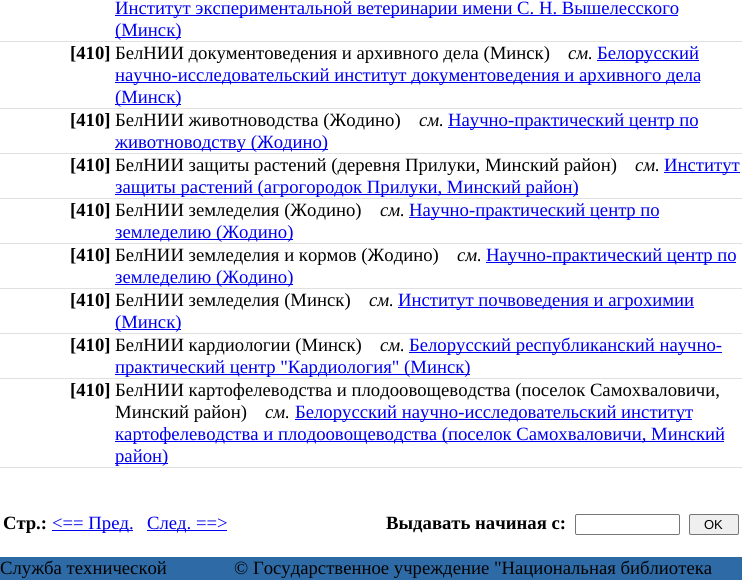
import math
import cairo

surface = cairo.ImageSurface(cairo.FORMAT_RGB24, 742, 580)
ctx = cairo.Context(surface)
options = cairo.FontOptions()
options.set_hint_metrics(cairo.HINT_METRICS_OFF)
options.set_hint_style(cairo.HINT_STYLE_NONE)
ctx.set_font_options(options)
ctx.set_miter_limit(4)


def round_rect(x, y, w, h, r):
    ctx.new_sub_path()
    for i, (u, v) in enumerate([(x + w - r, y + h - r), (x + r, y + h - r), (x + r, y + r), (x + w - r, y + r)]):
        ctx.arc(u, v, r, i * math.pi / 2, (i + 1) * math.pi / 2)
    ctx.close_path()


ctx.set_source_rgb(1, 1, 1)
ctx.paint()
ctx.set_source_rgb(0.878, 0.878, 0.878)
ctx.rectangle(0, 41, 742, 1)
ctx.fill()
ctx.set_source_rgb(0, 0, 0.933)
ctx.rectangle(115, 15, 563, 1)
ctx.fill()
ctx.select_font_face("Liberation Serif")
ctx.set_font_size(18.7)
ctx.move_to(115, 14)
ctx.show_text("Институт экспериментальной ветеринарии имени С. Н. Вышелесского")
ctx.rectangle(115, 37, 66, 1)
ctx.fill()
ctx.move_to(115, 36)
ctx.show_text("(Минск)")
ctx.select_font_face("Liberation Serif", cairo.FONT_SLANT_NORMAL, cairo.FONT_WEIGHT_BOLD)
ctx.set_source_rgb(0, 0, 0)
ctx.move_to(70, 59)
ctx.show_text("[410]")
ctx.set_source_rgb(0.878, 0.878, 0.878)
ctx.rectangle(0, 108, 742, 1)
ctx.fill()
ctx.select_font_face("Liberation Serif")
ctx.set_source_rgb(0, 0, 0)
ctx.move_to(115, 59)
ctx.show_text("БелНИИ документоведения и архивного дела (Минск)")
ctx.select_font_face("Liberation Serif", cairo.FONT_SLANT_ITALIC)
ctx.move_to(568, 59)
ctx.show_text("см.")
ctx.set_source_rgb(0, 0, 0.933)
ctx.rectangle(597, 60, 102, 1)
ctx.fill()
ctx.select_font_face("Liberation Serif")
ctx.move_to(597, 59)
ctx.show_text("Белорусский")
ctx.rectangle(115, 82, 585, 1)
ctx.fill()
ctx.move_to(115, 81)
ctx.show_text("научно-исследовательский институт документоведения и архивного дела")
ctx.rectangle(115, 104, 66, 1)
ctx.fill()
ctx.move_to(115, 103)
ctx.show_text("(Минск)")
ctx.select_font_face("Liberation Serif", cairo.FONT_SLANT_NORMAL, cairo.FONT_WEIGHT_BOLD)
ctx.set_source_rgb(0, 0, 0)
ctx.move_to(70, 126)
ctx.show_text("[410]")
ctx.set_source_rgb(0.878, 0.878, 0.878)
ctx.rectangle(0, 153, 742, 1)
ctx.fill()
ctx.select_font_face("Liberation Serif")
ctx.set_source_rgb(0, 0, 0)
ctx.move_to(115, 126)
ctx.show_text("БелНИИ животноводства (Жодино)")
ctx.select_font_face("Liberation Serif", cairo.FONT_SLANT_ITALIC)
ctx.move_to(419, 126)
ctx.show_text("см.")
ctx.set_source_rgb(0, 0, 0.933)
ctx.rectangle(448, 127, 250, 1)
ctx.fill()
ctx.select_font_face("Liberation Serif")
ctx.move_to(448, 126)
ctx.show_text("Научно-практический центр по")
ctx.rectangle(115, 149, 213, 1)
ctx.fill()
ctx.move_to(115, 148)
ctx.show_text("животноводству (Жодино)")
ctx.select_font_face("Liberation Serif", cairo.FONT_SLANT_NORMAL, cairo.FONT_WEIGHT_BOLD)
ctx.set_source_rgb(0, 0, 0)
ctx.move_to(70, 171)
ctx.show_text("[410]")
ctx.set_source_rgb(0.878, 0.878, 0.878)
ctx.rectangle(0, 198, 742, 1)
ctx.fill()
ctx.select_font_face("Liberation Serif")
ctx.set_source_rgb(0, 0, 0)
ctx.move_to(115, 171)
ctx.show_text("БелНИИ защиты растений (деревня Прилуки, Минский район)")
ctx.select_font_face("Liberation Serif", cairo.FONT_SLANT_ITALIC)
ctx.move_to(635, 171)
ctx.show_text("см.")
ctx.set_source_rgb(0, 0, 0.933)
ctx.rectangle(664, 172, 76, 1)
ctx.fill()
ctx.select_font_face("Liberation Serif")
ctx.move_to(664, 171)
ctx.show_text("Институт")
ctx.rectangle(115, 194, 463, 1)
ctx.fill()
ctx.move_to(115, 193)
ctx.show_text("защиты растений (агрогородок Прилуки, Минский район)")
ctx.select_font_face("Liberation Serif", cairo.FONT_SLANT_NORMAL, cairo.FONT_WEIGHT_BOLD)
ctx.set_source_rgb(0, 0, 0)
ctx.move_to(70, 216)
ctx.show_text("[410]")
ctx.set_source_rgb(0.878, 0.878, 0.878)
ctx.rectangle(0, 243, 742, 1)
ctx.fill()
ctx.select_font_face("Liberation Serif")
ctx.set_source_rgb(0, 0, 0)
ctx.move_to(115, 216)
ctx.show_text("БелНИИ земледелия (Жодино)")
ctx.select_font_face("Liberation Serif", cairo.FONT_SLANT_ITALIC)
ctx.move_to(380, 216)
ctx.show_text("см.")
ctx.set_source_rgb(0, 0, 0.933)
ctx.rectangle(409, 217, 250, 1)
ctx.fill()
ctx.select_font_face("Liberation Serif")
ctx.move_to(409, 216)
ctx.show_text("Научно-практический центр по")
ctx.rectangle(115, 239, 178, 1)
ctx.fill()
ctx.move_to(115, 238)
ctx.show_text("земледелию (Жодино)")
ctx.select_font_face("Liberation Serif", cairo.FONT_SLANT_NORMAL, cairo.FONT_WEIGHT_BOLD)
ctx.set_source_rgb(0, 0, 0)
ctx.move_to(70, 261)
ctx.show_text("[410]")
ctx.set_source_rgb(0.878, 0.878, 0.878)
ctx.rectangle(0, 288, 742, 1)
ctx.fill()
ctx.select_font_face("Liberation Serif")
ctx.set_source_rgb(0, 0, 0)
ctx.move_to(115, 261)
ctx.show_text("БелНИИ земледелия и кормов (Жодино)")
ctx.select_font_face("Liberation Serif", cairo.FONT_SLANT_ITALIC)
ctx.move_to(457, 261)
ctx.show_text("см.")
ctx.set_source_rgb(0, 0, 0.933)
ctx.rectangle(486, 262, 250, 1)
ctx.fill()
ctx.select_font_face("Liberation Serif")
ctx.move_to(486, 261)
ctx.show_text("Научно-практический центр по")
ctx.rectangle(115, 284, 178, 1)
ctx.fill()
ctx.move_to(115, 283)
ctx.show_text("земледелию (Жодино)")
ctx.select_font_face("Liberation Serif", cairo.FONT_SLANT_NORMAL, cairo.FONT_WEIGHT_BOLD)
ctx.set_source_rgb(0, 0, 0)
ctx.move_to(70, 306)
ctx.show_text("[410]")
ctx.set_source_rgb(0.878, 0.878, 0.878)
ctx.rectangle(0, 333, 742, 1)
ctx.fill()
ctx.select_font_face("Liberation Serif")
ctx.set_source_rgb(0, 0, 0)
ctx.move_to(115, 306)
ctx.show_text("БелНИИ земледелия (Минск)")
ctx.select_font_face("Liberation Serif", cairo.FONT_SLANT_ITALIC)
ctx.move_to(369, 306)
ctx.show_text("см.")
ctx.set_source_rgb(0, 0, 0.933)
ctx.rectangle(398, 307, 296, 1)
ctx.fill()
ctx.select_font_face("Liberation Serif")
ctx.move_to(398, 306)
ctx.show_text("Институт почвоведения и агрохимии")
ctx.rectangle(115, 329, 66, 1)
ctx.fill()
ctx.move_to(115, 328)
ctx.show_text("(Минск)")
ctx.select_font_face("Liberation Serif", cairo.FONT_SLANT_NORMAL, cairo.FONT_WEIGHT_BOLD)
ctx.set_source_rgb(0, 0, 0)
ctx.move_to(70, 351)
ctx.show_text("[410]")
ctx.set_source_rgb(0.878, 0.878, 0.878)
ctx.rectangle(0, 378, 742, 1)
ctx.fill()
ctx.select_font_face("Liberation Serif")
ctx.set_source_rgb(0, 0, 0)
ctx.move_to(115, 351)
ctx.show_text("БелНИИ кардиологии (Минск)")
ctx.select_font_face("Liberation Serif", cairo.FONT_SLANT_ITALIC)
ctx.move_to(380, 351)
ctx.show_text("см.")
ctx.set_source_rgb(0, 0, 0.933)
ctx.rectangle(409, 352, 313, 1)
ctx.fill()
ctx.select_font_face("Liberation Serif")
ctx.move_to(409, 351)
ctx.show_text("Белорусский республиканский научно-")
ctx.rectangle(115, 374, 355, 1)
ctx.fill()
ctx.move_to(115, 373)
ctx.show_text("практический центр \"Кардиология\" (Минск)")
ctx.select_font_face("Liberation Serif", cairo.FONT_SLANT_NORMAL, cairo.FONT_WEIGHT_BOLD)
ctx.set_source_rgb(0, 0, 0)
ctx.move_to(70, 396)
ctx.show_text("[410]")
ctx.set_source_rgb(0.878, 0.878, 0.878)
ctx.rectangle(0, 467, 742, 1)
ctx.fill()
ctx.select_font_face("Liberation Serif")
ctx.set_source_rgb(0, 0, 0)
ctx.move_to(115, 396)
ctx.show_text("БелНИИ картофелеводства и плодоовощеводства (поселок Самохваловичи,")
ctx.move_to(115, 418)
ctx.show_text("Минский район)")
ctx.select_font_face("Liberation Serif", cairo.FONT_SLANT_ITALIC)
ctx.move_to(265, 418)
ctx.show_text("см.")
ctx.set_source_rgb(0, 0, 0.933)
ctx.rectangle(295, 419, 397, 1)
ctx.fill()
ctx.select_font_face("Liberation Serif")
ctx.move_to(295, 418)
ctx.show_text("Белорусский научно-исследовательский институт")
ctx.rectangle(115, 441, 609, 1)
ctx.fill()
ctx.move_to(115, 440)
ctx.show_text("картофелеводства и плодоовощеводства (поселок Самохваловичи, Минский")
ctx.rectangle(115, 463, 53, 1)
ctx.fill()
ctx.move_to(115, 462)
ctx.show_text("район)")
ctx.select_font_face("Liberation Serif", cairo.FONT_SLANT_NORMAL, cairo.FONT_WEIGHT_BOLD)
ctx.set_source_rgb(0, 0, 0)
ctx.move_to(3, 529)
ctx.show_text("Стр.:")
ctx.set_source_rgb(0, 0, 0.933)
ctx.rectangle(52, 530, 81, 1)
ctx.fill()
ctx.select_font_face("Liberation Serif")
ctx.move_to(52, 529)
ctx.show_text("<== Пред.")
ctx.rectangle(147, 530, 80, 1)
ctx.fill()
ctx.move_to(147, 529)
ctx.show_text("След. ==>")
ctx.select_font_face("Liberation Serif", cairo.FONT_SLANT_NORMAL, cairo.FONT_WEIGHT_BOLD)
ctx.set_source_rgb(0, 0, 0)
ctx.move_to(386, 529)
ctx.show_text("Выдавать начиная с:")
round_rect(575.5, 514.5, 104, 20, 1.5)
ctx.set_source_rgb(0.463, 0.463, 0.463)
ctx.set_line_width(1)
ctx.stroke()
ctx.set_source_rgb(0.937, 0.937, 0.937)
round_rect(689.5, 514.5, 49, 20, 1.5)
ctx.fill_preserve()
ctx.set_source_rgb(0.463, 0.463, 0.463)
ctx.stroke()
ctx.select_font_face("Liberation Sans")
ctx.set_font_size(13)
ctx.set_source_rgb(0, 0, 0)
ctx.move_to(704, 529)
ctx.show_text("OK")
ctx.set_source_rgb(0.18, 0.42, 0.651)
ctx.rectangle(0, 557, 742, 23)
ctx.fill()
ctx.select_font_face("Liberation Serif")
ctx.set_font_size(18.7)
ctx.set_source_rgb(0, 0, 0)
ctx.move_to(0, 574)
ctx.show_text("Служба технической")
ctx.move_to(234, 574)
ctx.show_text("© Государственное учреждение \"Национальная библиотека")
surface.write_to_png("page.png")
